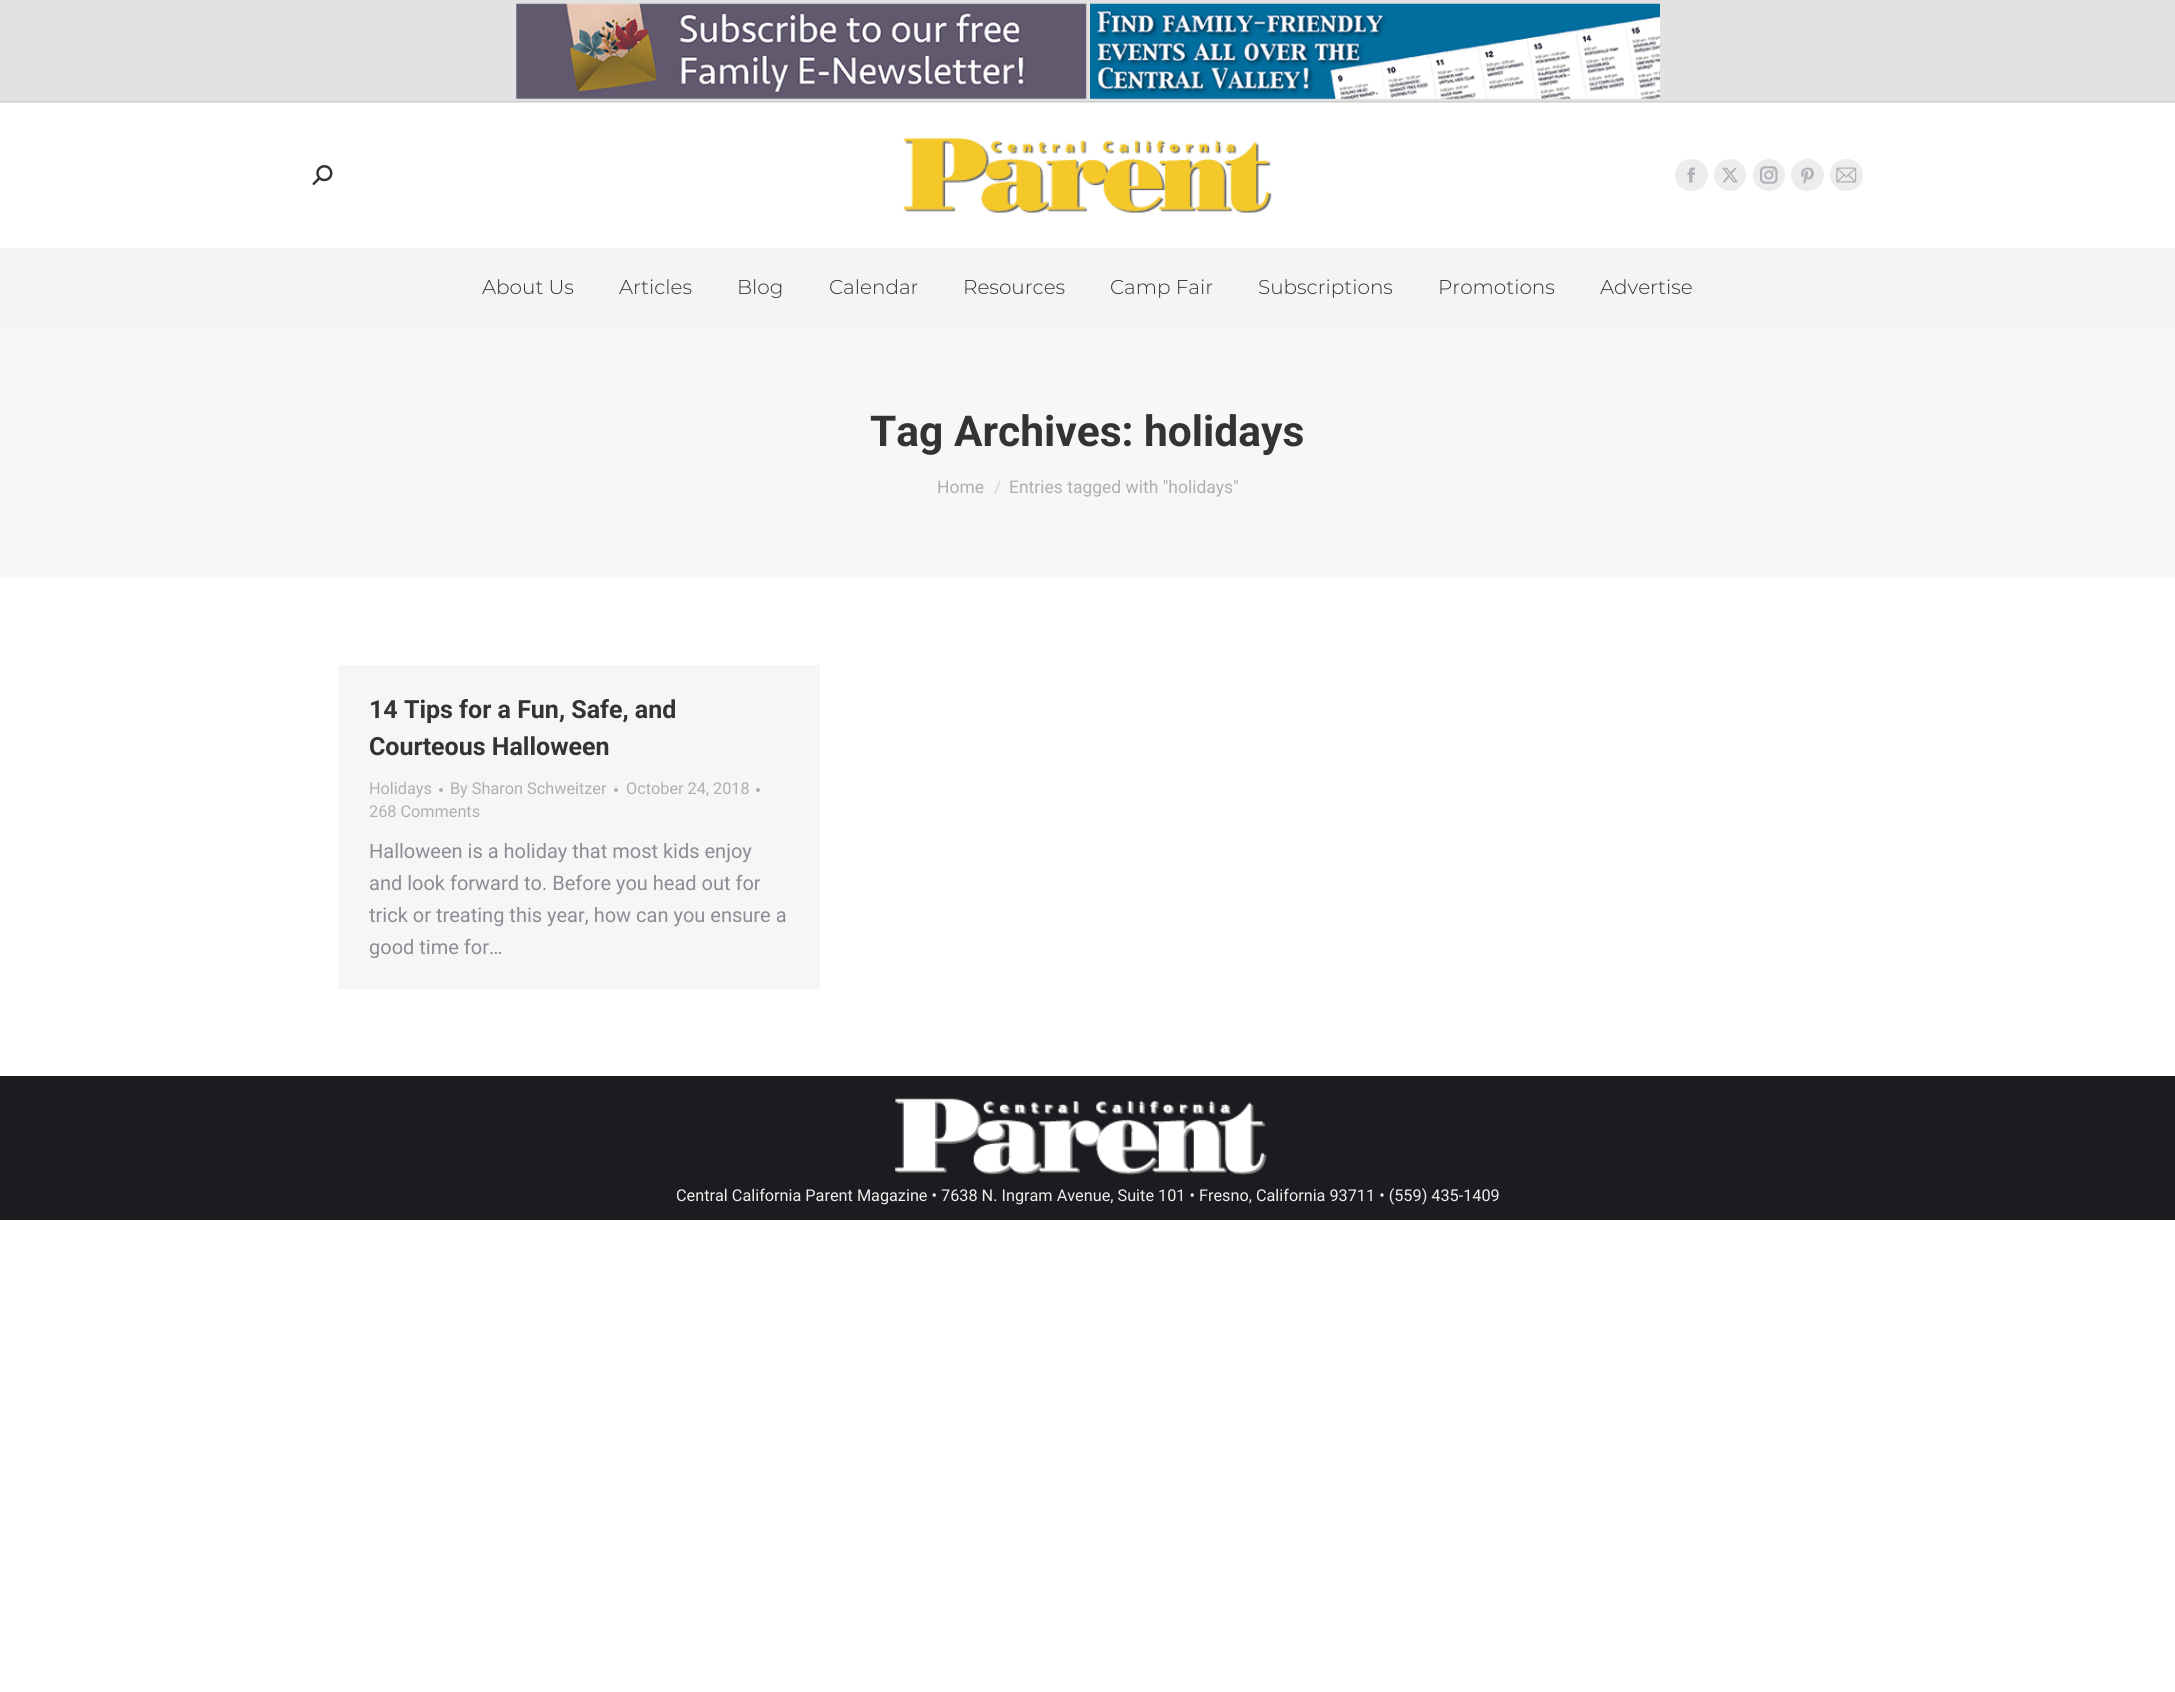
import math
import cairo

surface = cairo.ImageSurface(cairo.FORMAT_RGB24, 2175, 1692)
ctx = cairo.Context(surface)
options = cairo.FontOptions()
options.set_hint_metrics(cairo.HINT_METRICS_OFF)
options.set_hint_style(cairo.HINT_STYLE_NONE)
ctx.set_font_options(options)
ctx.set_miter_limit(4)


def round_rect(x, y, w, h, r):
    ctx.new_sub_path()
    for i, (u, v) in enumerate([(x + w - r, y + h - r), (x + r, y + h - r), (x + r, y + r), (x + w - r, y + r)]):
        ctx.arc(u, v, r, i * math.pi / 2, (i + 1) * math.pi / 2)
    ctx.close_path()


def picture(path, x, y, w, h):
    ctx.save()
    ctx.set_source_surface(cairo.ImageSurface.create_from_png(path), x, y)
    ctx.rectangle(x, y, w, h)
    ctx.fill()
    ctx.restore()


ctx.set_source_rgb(1, 1, 1)
ctx.paint()
ctx.set_source_rgb(0.886, 0.886, 0.886)
ctx.rectangle(0, 0, 2175, 103)
ctx.fill()
picture("img1.png", 516, 3, 571, 96)
picture("img2.png", 1090, 3, 570, 96)
ctx.set_source_rgb(0.812, 0.812, 0.812)
ctx.rectangle(0, 101, 2175, 1)
ctx.fill()
picture("img3.png", 312, 165, 21, 20)
picture("img4.png", 903, 137, 369, 76)
ctx.set_source_rgb(0.929, 0.929, 0.929)
round_rect(1675, 159, 33, 32, 16)
ctx.fill()
picture("img5.png", 1687, 167, 8, 16)
ctx.arc(1730, 175, 16, 0, 2 * math.pi)
ctx.fill()
picture("img6.png", 1722, 167, 16, 16)
ctx.arc(1769, 175, 16, 0, 2 * math.pi)
ctx.fill()
picture("img7.png", 1760, 166, 18, 18)
round_rect(1791, 159, 33, 32, 16)
ctx.fill()
picture("img8.png", 1801, 167, 13, 17)
round_rect(1830, 159, 33, 32, 16)
ctx.fill()
picture("img9.png", 1836, 167, 21, 16)
ctx.set_source_rgb(0.957, 0.957, 0.957)
ctx.rectangle(0, 248, 2175, 80)
ctx.fill()
ctx.select_font_face("Montserrat Light")
ctx.set_font_size(20)
ctx.set_source_rgb(0.2, 0.2, 0.2)
ctx.move_to(482, 294)
ctx.show_text("About Us")
ctx.move_to(619, 294)
ctx.show_text("Articles")
ctx.move_to(737, 294)
ctx.show_text("Blog")
ctx.move_to(829, 294)
ctx.show_text("Calendar")
ctx.move_to(963, 294)
ctx.show_text("Resources")
ctx.move_to(1110, 294)
ctx.show_text("Camp Fair")
ctx.move_to(1258, 294)
ctx.show_text("Subscriptions")
ctx.move_to(1438, 294)
ctx.show_text("Promotions")
ctx.move_to(1600, 294)
ctx.show_text("Advertise")
ctx.set_source_rgb(0.965, 0.965, 0.965)
ctx.rectangle(0, 328, 2175, 250)
ctx.fill()
ctx.select_font_face("Roboto", cairo.FONT_SLANT_NORMAL, cairo.FONT_WEIGHT_BOLD)
ctx.set_font_size(42.5)
ctx.set_source_rgb(0.2, 0.2, 0.2)
ctx.move_to(870, 446)
ctx.show_text("Tag Archives: holidays")
ctx.select_font_face("Roboto")
ctx.set_font_size(17.5)
ctx.set_source_rgb(0.678, 0.686, 0.702)
ctx.move_to(937, 493)
ctx.show_text("Home")
ctx.set_source_rgb(0.824, 0.827, 0.835)
ctx.move_to(994, 493)
ctx.show_text("/")
ctx.set_source_rgb(0.678, 0.686, 0.702)
ctx.move_to(1009, 493)
ctx.show_text("Entries tagged with \"holidays\"")
ctx.set_source_rgb(0.961, 0.961, 0.961)
ctx.rectangle(338, 665, 482, 324)
ctx.fill()
ctx.select_font_face("Roboto", cairo.FONT_SLANT_NORMAL, cairo.FONT_WEIGHT_BOLD)
ctx.set_font_size(25)
ctx.set_source_rgb(0.2, 0.2, 0.2)
ctx.move_to(369, 718)
ctx.show_text("14 Tips for a Fun, Safe, and")
ctx.move_to(369, 755)
ctx.show_text("Courteous Halloween")
ctx.select_font_face("Roboto")
ctx.set_font_size(16.25)
ctx.set_source_rgb(0.678, 0.686, 0.702)
ctx.move_to(369, 794)
ctx.show_text("Holidays")
ctx.new_path()
ctx.arc(441, 790, 2, 0, 2 * math.pi)
ctx.fill()
ctx.move_to(450, 794)
ctx.show_text("By Sharon Schweitzer")
ctx.new_path()
ctx.arc(616, 790, 2, 0, 2 * math.pi)
ctx.fill()
ctx.move_to(626, 794)
ctx.show_text("October 24, 2018")
ctx.new_path()
ctx.arc(758, 790, 2, 0, 2 * math.pi)
ctx.fill()
ctx.move_to(369, 817)
ctx.show_text("268 Comments")
ctx.set_font_size(20)
ctx.set_source_rgb(0.545, 0.553, 0.58)
ctx.move_to(369, 858)
ctx.show_text("Halloween is a holiday that most kids enjoy")
ctx.move_to(369, 890)
ctx.show_text("and look forward to. Before you head out for")
ctx.move_to(369, 922)
ctx.show_text("trick or treating this year, how can you ensure a")
ctx.move_to(369, 954)
ctx.show_text("good time for…")
ctx.set_source_rgb(0.102, 0.11, 0.125)
ctx.rectangle(0, 1076, 2175, 144)
ctx.fill()
picture("img10.png", 895, 1098, 372, 77)
ctx.set_font_size(16.25)
ctx.set_source_rgb(0.933, 0.933, 0.933)
ctx.move_to(676, 1201)
ctx.show_text("Central California Parent Magazine • 7638 N. Ingram Avenue, Suite 101 • Fresno, California 93711 • (559) 435-1409")
surface.write_to_png("page.png")
